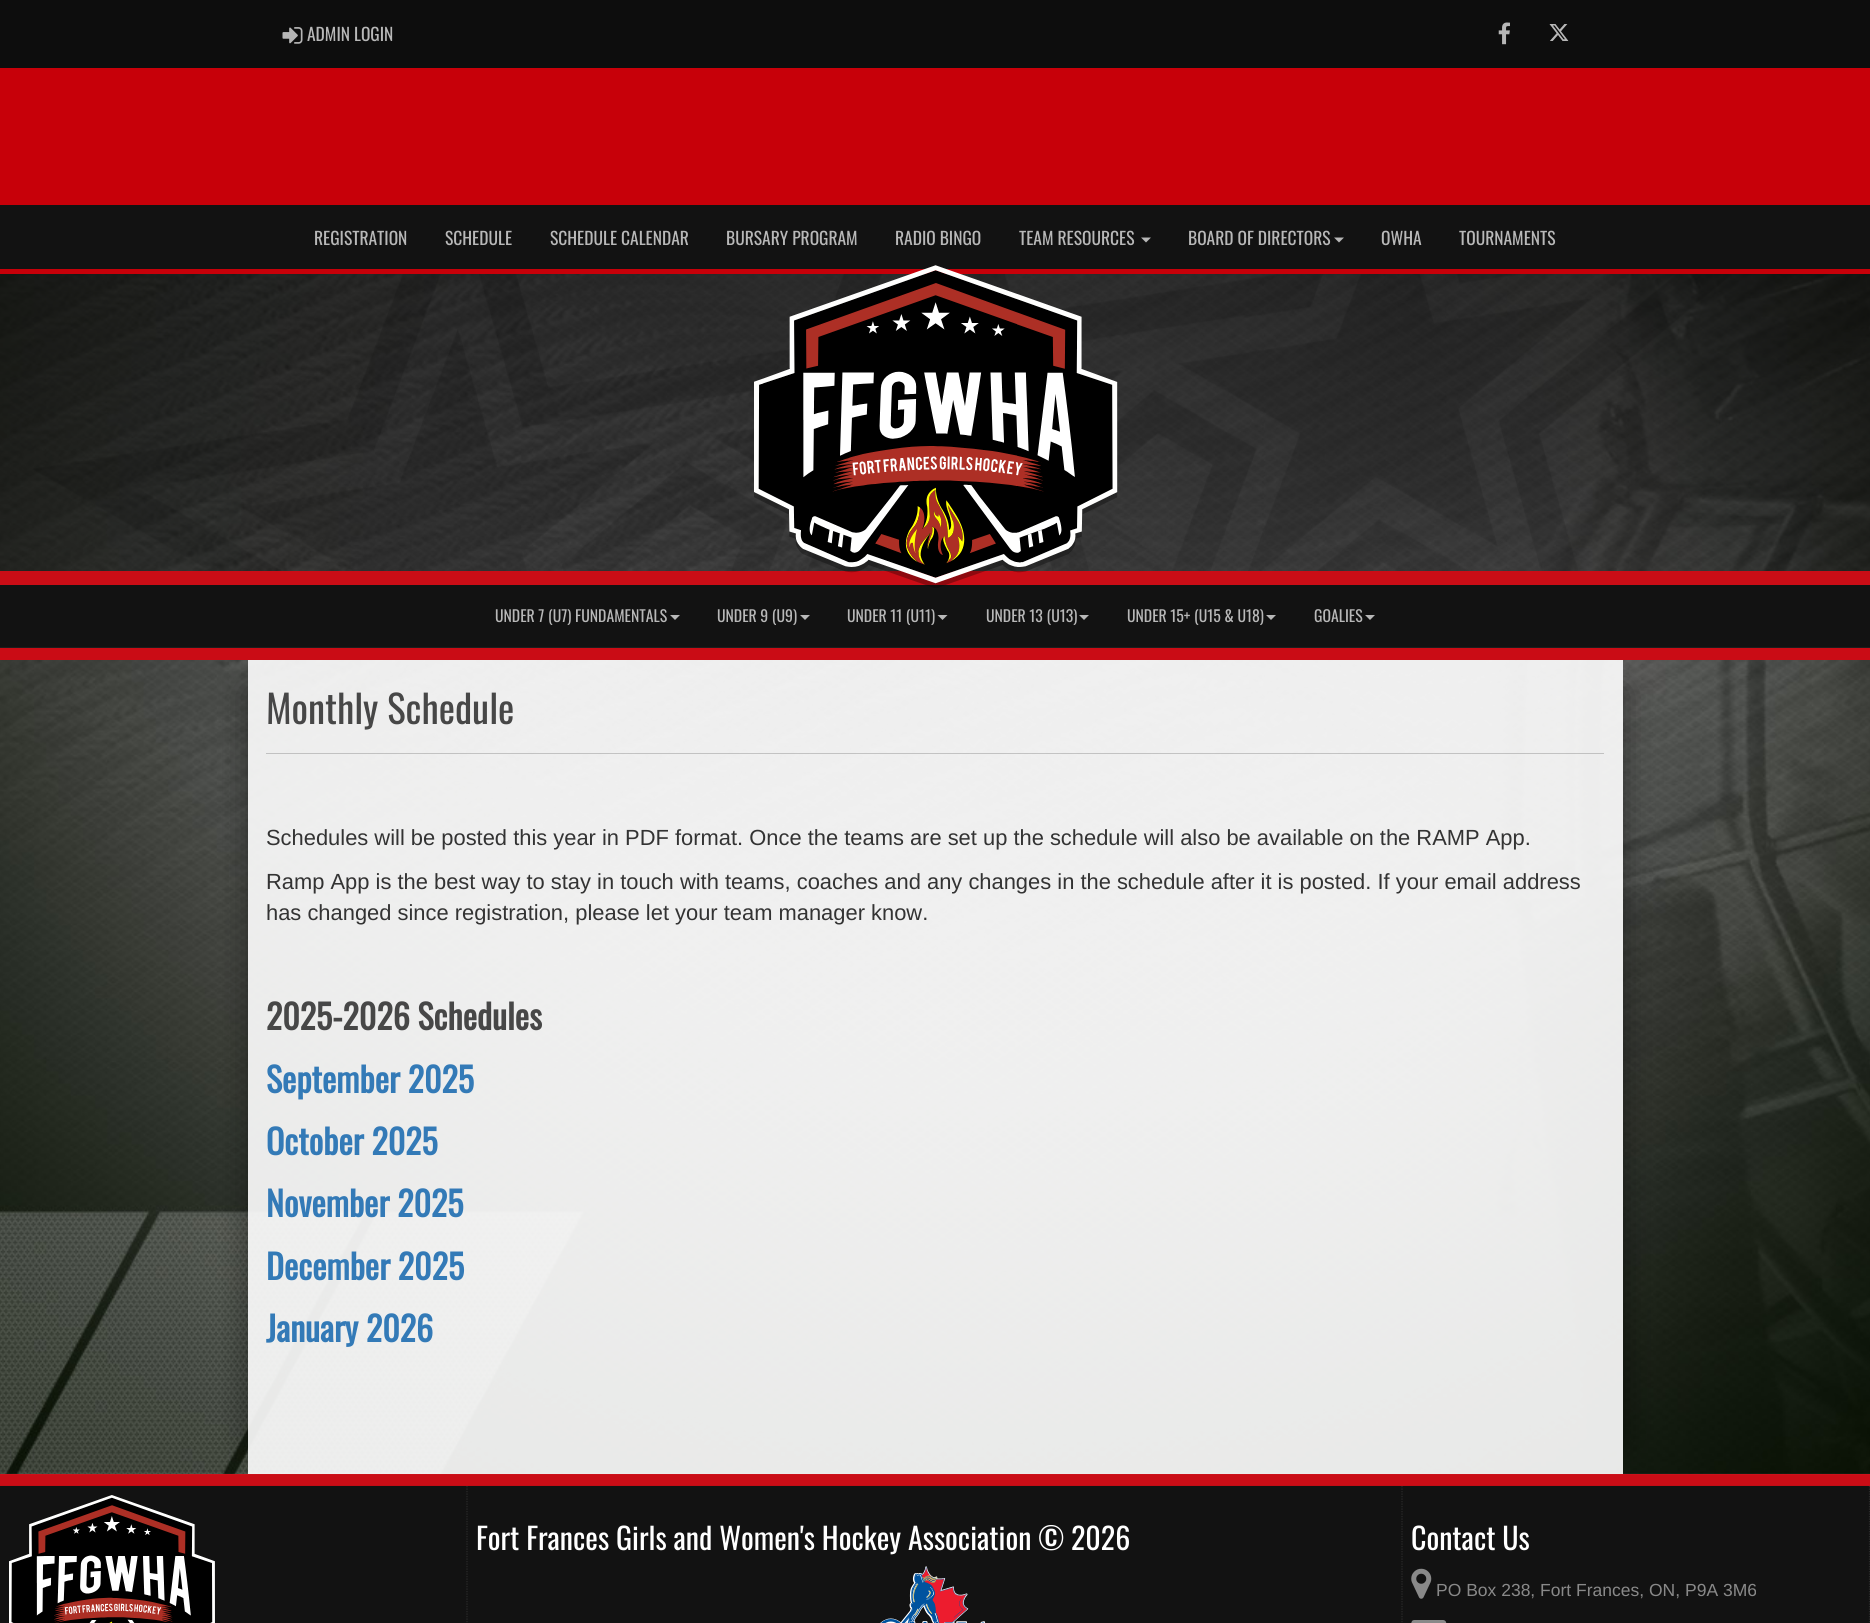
import math
import cairo

surface = cairo.ImageSurface(cairo.FORMAT_RGB24, 1870, 1623)
ctx = cairo.Context(surface)
options = cairo.FontOptions()
options.set_hint_metrics(cairo.HINT_METRICS_OFF)
options.set_hint_style(cairo.HINT_STYLE_NONE)
ctx.set_font_options(options)
ctx.set_miter_limit(4)


def round_rect(x, y, w, h, r):
    ctx.new_sub_path()
    for i, (u, v) in enumerate([(x + w - r, y + h - r), (x + r, y + h - r), (x + r, y + r), (x + w - r, y + r)]):
        ctx.arc(u, v, r, i * math.pi / 2, (i + 1) * math.pi / 2)
    ctx.close_path()


def shadow(x, y, w, h, r, blur, alpha):
    ctx.push_group_with_content(cairo.CONTENT_ALPHA)
    ctx.set_operator(cairo.OPERATOR_SOURCE)
    for i in range(15, -16, -2):
        e = blur * i / 6
        if min(w, h) + 2 * e > 0:
            ctx.set_source_rgba(0, 0, 0, alpha * math.erfc((i - 1) / 8.5) / 2)
            round_rect(x - e, y - e, w + 2 * e, h + 2 * e, max(0, min(r + e + blur * .6, min(w, h) / 2 + e)))
            ctx.fill()
    ctx.mask(ctx.pop_group())


def picture(path, x, y, w, h):
    ctx.save()
    ctx.set_source_surface(cairo.ImageSurface.create_from_png(path), x, y)
    ctx.rectangle(x, y, w, h)
    ctx.fill()
    ctx.restore()


ctx.set_source_rgb(1, 1, 1)
ctx.paint()
ctx.set_source_rgb(0.051, 0.051, 0.051)
ctx.rectangle(0, 0, 1870, 68)
ctx.fill()
picture("img1.png", 282, 27, 21, 17)
ctx.select_font_face("Oswald")
ctx.set_font_size(17.5)
ctx.set_source_rgb(0.722, 0.722, 0.722)
ctx.move_to(307, 41)
ctx.show_text("ADMIN LOGIN")
picture("img2.png", 1498, 22, 12, 23)
picture("img3.png", 1549, 24, 20, 17)
ctx.set_source_rgb(0.78, 0, 0.039)
ctx.rectangle(0, 68, 1870, 137)
ctx.fill()
ctx.set_source_rgb(0.071, 0.071, 0.071)
ctx.rectangle(0, 205, 1870, 64)
ctx.fill()
ctx.set_source_rgb(0.78, 0, 0.039)
ctx.rectangle(0, 269, 1870, 5)
ctx.fill()
ctx.set_source_rgb(0.722, 0.722, 0.722)
ctx.move_to(314, 245)
ctx.show_text("REGISTRATION")
ctx.move_to(445, 245)
ctx.show_text("SCHEDULE")
ctx.move_to(550, 245)
ctx.show_text("SCHEDULE CALENDAR")
ctx.move_to(726, 245)
ctx.show_text("BURSARY PROGRAM")
ctx.move_to(895, 245)
ctx.show_text("RADIO BINGO")
ctx.move_to(1019, 245)
ctx.show_text("TEAM RESOURCES")
ctx.new_path()
ctx.move_to(1141, 237.5)
ctx.line_to(1151, 237.5)
ctx.line_to(1146, 242.5)
ctx.close_path()
ctx.fill()
ctx.move_to(1188, 245)
ctx.show_text("BOARD OF DIRECTORS")
ctx.new_path()
ctx.move_to(1334, 237.5)
ctx.line_to(1344, 237.5)
ctx.line_to(1339, 242.5)
ctx.close_path()
ctx.fill()
ctx.move_to(1381, 245)
ctx.show_text("OWHA")
ctx.move_to(1459, 245)
ctx.show_text("TOURNAMENTS")
picture("img5.png", 0, 274, 1870, 1200)
picture("img6.png", 0, 274, 1870, 297)
ctx.set_source_rgb(0.792, 0.051, 0.086)
ctx.rectangle(0, 571, 1870, 14)
ctx.fill()
ctx.save()
ctx.rectangle(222, 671, 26, 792)
ctx.clip()
ctx.set_source_rgb(0, 0, 0)
shadow(248, 691, 1312, 752, 0, 15.5, 0.45)
ctx.restore()
ctx.save()
ctx.set_fill_rule(cairo.FILL_RULE_EVEN_ODD)
ctx.new_path()
ctx.move_to(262, 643)
ctx.line_to(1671, 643)
ctx.line_to(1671, 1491)
ctx.line_to(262, 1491)
ctx.close_path()
ctx.move_to(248, 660)
ctx.line_to(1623, 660)
ctx.line_to(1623, 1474)
ctx.line_to(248, 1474)
ctx.close_path()
ctx.clip()
ctx.set_source_rgb(0, 0, 0)
shadow(310, 691, 1313, 752, 0, 15.5, 0.45)
ctx.restore()
ctx.set_source_rgb(0.071, 0.071, 0.071)
ctx.rectangle(0, 585, 1870, 63)
ctx.fill()
picture("img4.png", 754, 265, 364, 323)
ctx.set_font_size(15.75)
ctx.set_source_rgb(0.722, 0.722, 0.722)
ctx.move_to(495, 622)
ctx.show_text("UNDER 7 (U7) FUNDAMENTALS")
ctx.new_path()
ctx.move_to(670, 615)
ctx.line_to(680, 615)
ctx.line_to(675, 620)
ctx.close_path()
ctx.fill()
ctx.move_to(717, 622)
ctx.show_text("UNDER 9 (U9)")
ctx.new_path()
ctx.move_to(800, 615)
ctx.line_to(810, 615)
ctx.line_to(805, 620)
ctx.close_path()
ctx.fill()
ctx.move_to(847, 622)
ctx.show_text("UNDER 11 (U11)")
ctx.new_path()
ctx.move_to(937.5, 615)
ctx.line_to(947.5, 615)
ctx.line_to(942.5, 620)
ctx.close_path()
ctx.fill()
ctx.move_to(986, 622)
ctx.show_text("UNDER 13 (U13)")
ctx.new_path()
ctx.move_to(1079, 615)
ctx.line_to(1089, 615)
ctx.line_to(1084, 620)
ctx.close_path()
ctx.fill()
ctx.move_to(1127, 622)
ctx.show_text("UNDER 15+ (U15 & U18)")
ctx.new_path()
ctx.move_to(1266, 615)
ctx.line_to(1276, 615)
ctx.line_to(1271, 620)
ctx.close_path()
ctx.fill()
ctx.move_to(1314, 622)
ctx.show_text("GOALIES")
ctx.new_path()
ctx.move_to(1365, 615)
ctx.line_to(1375, 615)
ctx.line_to(1370, 620)
ctx.close_path()
ctx.fill()
ctx.set_source_rgb(0.78, 0, 0.039)
ctx.rectangle(0, 648, 1870, 12)
ctx.fill()
ctx.set_source_rgba(1, 1, 1, 0.05)
ctx.rectangle(0, 647, 1870, 13)
ctx.fill()
ctx.set_source_rgba(1, 1, 1, 0.9)
ctx.rectangle(248, 660, 1375, 814)
ctx.fill()
ctx.set_font_size(38.75)
ctx.set_source_rgb(0.278, 0.278, 0.278)
ctx.move_to(266, 724)
ctx.show_text("Monthly Schedule")
ctx.set_source_rgba(0.071, 0.071, 0.071, 0.2)
ctx.rectangle(266, 753, 1338, 1)
ctx.fill()
ctx.select_font_face("Liberation Sans")
ctx.set_font_size(21.9)
ctx.set_source_rgb(0.2, 0.2, 0.2)
ctx.move_to(266, 845)
ctx.show_text("Schedules will be posted this year in PDF format. Once the teams are set up the schedule will also be available on the RAMP App.")
ctx.move_to(266, 889)
ctx.show_text("Ramp App is the best way to stay in touch with teams, coaches and any changes in the schedule after it is posted. If your email address")
ctx.move_to(266, 920)
ctx.show_text("has changed since registration, please let your team manager know.")
ctx.select_font_face("Oswald", cairo.FONT_SLANT_NORMAL, cairo.FONT_WEIGHT_BOLD)
ctx.set_font_size(34)
ctx.set_source_rgb(0.278, 0.278, 0.278)
ctx.move_to(266, 1030)
ctx.show_text("2025-2026 Schedules")
ctx.set_source_rgb(0.2, 0.478, 0.718)
ctx.move_to(266, 1093)
ctx.show_text("September 2025")
ctx.move_to(266, 1155)
ctx.show_text("October 2025")
ctx.move_to(266, 1217)
ctx.show_text("November 2025")
ctx.move_to(266, 1280)
ctx.show_text("December 2025")
ctx.move_to(266, 1342)
ctx.show_text("January 2026")
ctx.set_source_rgb(0.78, 0, 0.039)
ctx.rectangle(0, 1474, 1870, 12)
ctx.fill()
picture("img7.png", 0, 1473, 1870, 13)
ctx.set_source_rgb(0.071, 0.071, 0.071)
ctx.rectangle(0, 1486, 1870, 137)
ctx.fill()
ctx.new_path()
ctx.move_to(467, 1486)
ctx.line_to(467, 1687.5)
ctx.set_source_rgb(0.165, 0.165, 0.165)
ctx.set_line_width(1.2)
ctx.set_dash([1.25, 1.25])
ctx.stroke()
picture("img8.png", 9, 1495, 206, 128)
ctx.new_path()
ctx.move_to(1402, 1486)
ctx.line_to(1402, 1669)
ctx.stroke()
ctx.select_font_face("Oswald")
ctx.set_font_size(30)
ctx.set_source_rgb(1, 1, 1)
ctx.move_to(476, 1550)
ctx.show_text("Fort Frances Girls and Women's Hockey Association © 2026")
picture("img9.png", 880, 1566, 106, 57)
ctx.new_path()
ctx.move_to(1869.5, 1486)
ctx.line_to(1869.5, 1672.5)
ctx.set_source_rgb(0.165, 0.165, 0.165)
ctx.stroke()
ctx.set_source_rgb(1, 1, 1)
ctx.move_to(1411, 1550)
ctx.show_text("Contact Us")
picture("img10.png", 1411, 1568, 21, 31)
ctx.select_font_face("Liberation Sans")
ctx.set_font_size(17.5)
ctx.set_source_rgb(0.537, 0.537, 0.537)
ctx.move_to(1436, 1596)
ctx.show_text("PO Box 238, Fort Frances, ON, P9A 3M6")
picture("img11.png", 1411, 1620, 36, 3)
surface.write_to_png("page.png")
